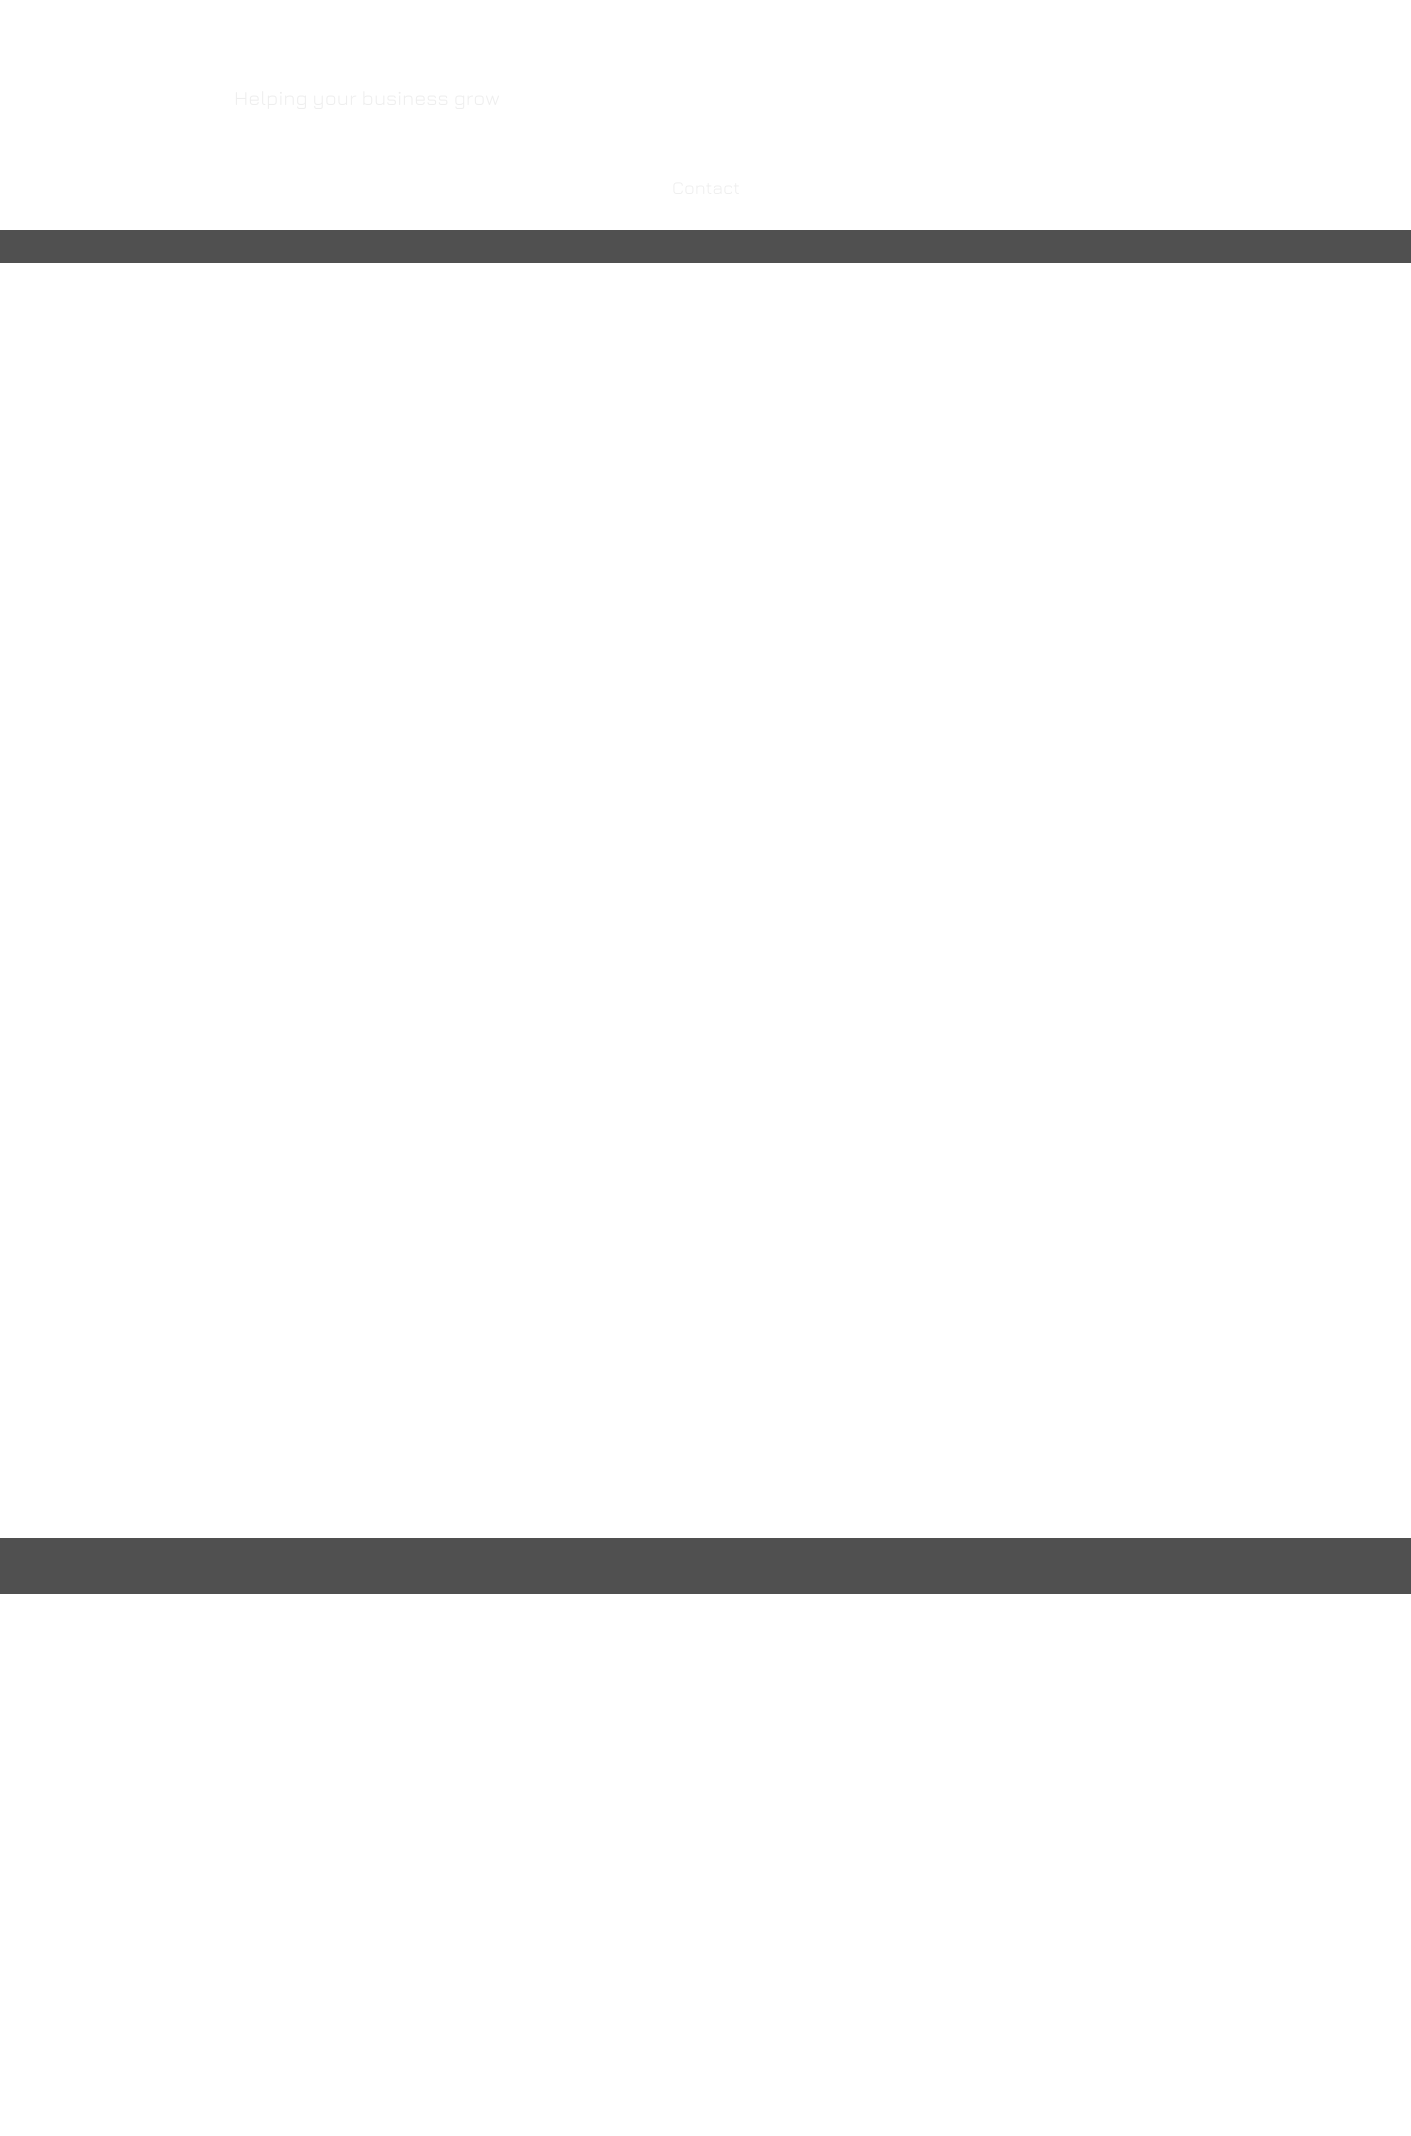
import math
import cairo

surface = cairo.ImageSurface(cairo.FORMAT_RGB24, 1411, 2136)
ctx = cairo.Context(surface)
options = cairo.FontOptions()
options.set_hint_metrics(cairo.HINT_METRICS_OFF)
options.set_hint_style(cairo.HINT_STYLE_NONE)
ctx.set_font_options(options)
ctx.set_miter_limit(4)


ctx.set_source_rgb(1, 1, 1)
ctx.paint()
ctx.select_font_face("Jura")
ctx.set_font_size(20)
ctx.set_source_rgb(0.933, 0.933, 0.933)
ctx.move_to(234, 105)
ctx.show_text("Helping your business grow")
ctx.set_font_size(18)
ctx.move_to(672, 194)
ctx.show_text("Contact")
ctx.set_source_rgb(0.314, 0.314, 0.314)
ctx.rectangle(0, 230, 1411, 33)
ctx.fill()
ctx.rectangle(0, 1538, 1411, 56)
ctx.fill()
surface.write_to_png("page.png")
